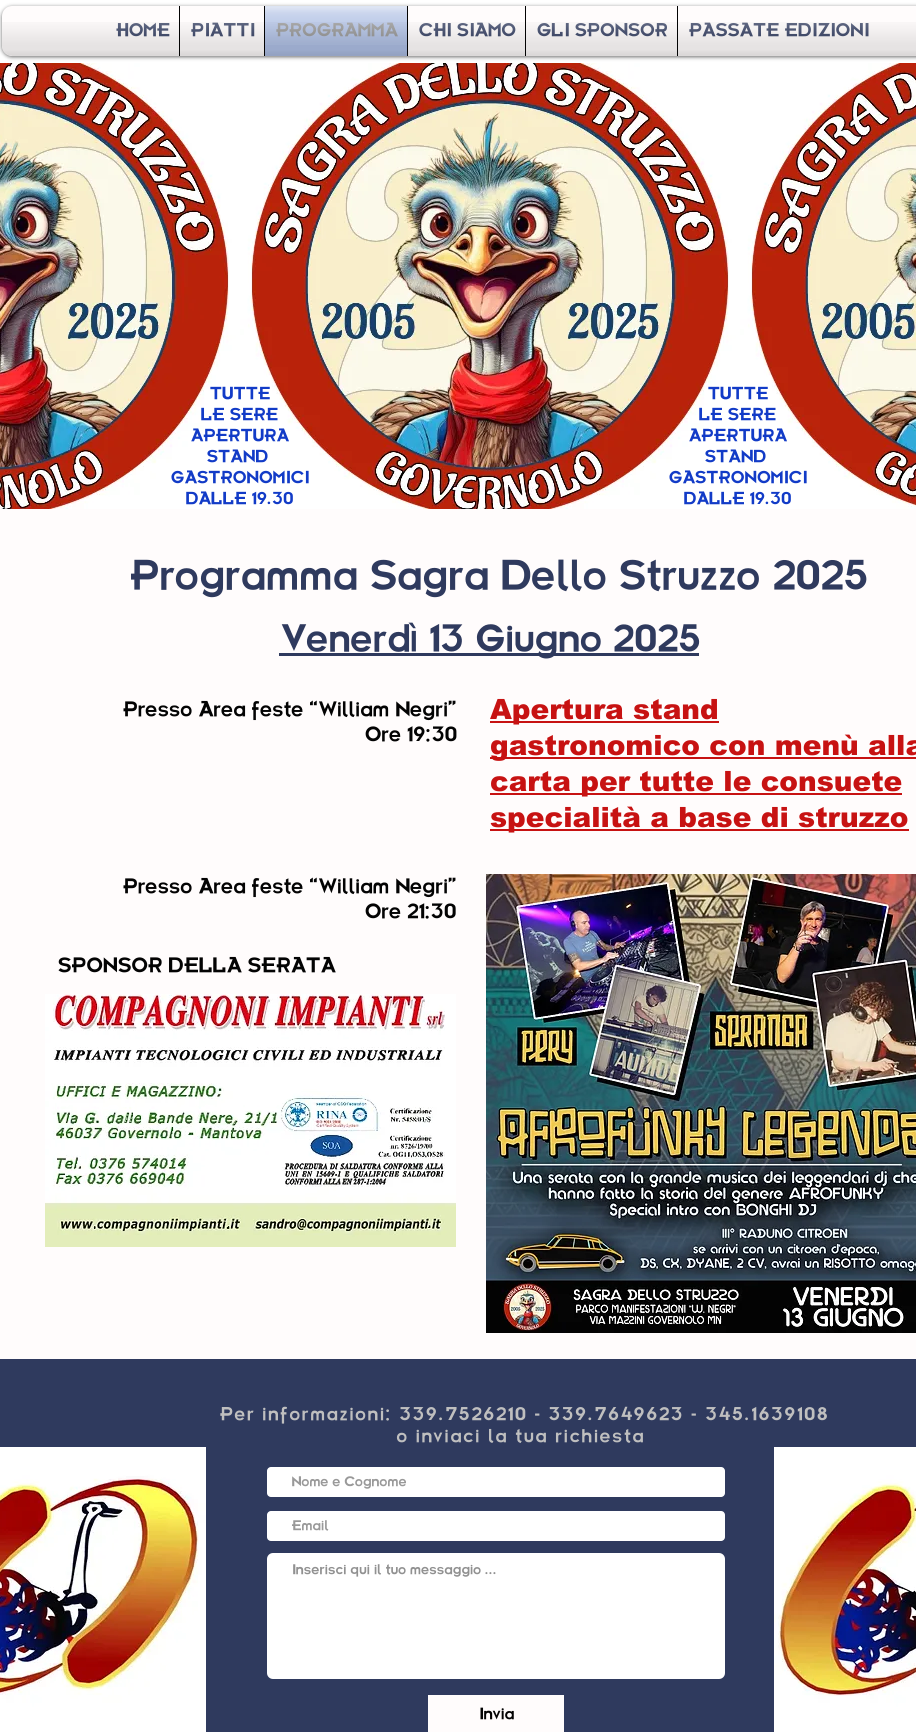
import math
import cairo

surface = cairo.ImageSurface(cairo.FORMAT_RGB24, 916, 1732)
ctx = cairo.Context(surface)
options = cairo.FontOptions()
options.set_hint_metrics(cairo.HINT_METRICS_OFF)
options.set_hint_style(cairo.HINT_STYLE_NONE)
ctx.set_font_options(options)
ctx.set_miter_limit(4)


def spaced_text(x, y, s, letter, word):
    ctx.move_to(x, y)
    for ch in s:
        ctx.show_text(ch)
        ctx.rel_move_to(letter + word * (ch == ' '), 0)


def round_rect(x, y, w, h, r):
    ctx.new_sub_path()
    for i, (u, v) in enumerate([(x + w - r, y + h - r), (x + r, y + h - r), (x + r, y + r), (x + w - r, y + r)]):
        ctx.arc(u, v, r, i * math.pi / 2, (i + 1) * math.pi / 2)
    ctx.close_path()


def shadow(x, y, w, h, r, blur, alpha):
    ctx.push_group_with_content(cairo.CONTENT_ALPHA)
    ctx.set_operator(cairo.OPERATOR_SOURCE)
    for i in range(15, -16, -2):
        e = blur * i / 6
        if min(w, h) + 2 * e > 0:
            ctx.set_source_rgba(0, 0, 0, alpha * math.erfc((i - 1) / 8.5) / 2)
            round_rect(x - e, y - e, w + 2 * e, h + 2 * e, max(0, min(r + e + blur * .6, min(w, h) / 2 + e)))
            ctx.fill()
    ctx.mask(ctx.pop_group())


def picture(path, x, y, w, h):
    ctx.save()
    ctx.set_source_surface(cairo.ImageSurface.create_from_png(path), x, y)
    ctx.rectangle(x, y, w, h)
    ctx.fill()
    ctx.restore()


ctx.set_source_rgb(1, 0.988, 0.988)
ctx.paint()
ctx.set_source_rgb(1, 1, 1)
ctx.rectangle(0, 0, 916, 63)
ctx.fill()
picture("img14.png", 0, 63, 916, 446)
ctx.set_source_rgb(0, 0, 0)
shadow(2, 7, 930, 50, 10, 2, 0.6)
ctx.set_source_rgb(1, 0.988, 0.988)
round_rect(2, 6, 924, 50, 10)
ctx.fill()
picture("img1.png", 2, 22, 914, 34)
ctx.rectangle(105, 22, 74, 34)
ctx.fill()
ctx.select_font_face("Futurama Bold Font", cairo.FONT_SLANT_NORMAL, cairo.FONT_WEIGHT_BOLD)
ctx.set_font_size(16)
ctx.set_source_rgb(0.184, 0.227, 0.369)
ctx.move_to(115, 36)
ctx.show_text("HOME")
picture("img2.png", 116, 23, 54, 14)
picture("img3.png", 105, 22, 74, 34)
ctx.set_source_rgb(1, 0.988, 0.988)
ctx.rectangle(180, 22, 84, 34)
ctx.fill()
ctx.set_source_rgb(0.012, 0.012, 0.012)
ctx.rectangle(179, 6, 1, 50)
ctx.fill()
ctx.set_source_rgb(0.184, 0.227, 0.369)
ctx.move_to(190, 36)
ctx.show_text("PIATTI")
picture("img4.png", 191, 22, 64, 15)
picture("img5.png", 180, 22, 84, 34)
ctx.set_source_rgb(0.675, 0.741, 0.886)
ctx.rectangle(265, 6, 142, 50)
ctx.fill()
ctx.set_source_rgb(0.012, 0.012, 0.012)
ctx.rectangle(264, 6, 1, 50)
ctx.fill()
ctx.set_source_rgb(0.569, 0.569, 0.569)
ctx.move_to(275, 36)
ctx.show_text("PROGRAMMA")
picture("img6.png", 265, 6, 142, 39)
picture("img7.png", 265, 22, 142, 34)
ctx.set_source_rgb(1, 0.988, 0.988)
ctx.rectangle(408, 22, 117, 34)
ctx.fill()
ctx.set_source_rgb(0.012, 0.012, 0.012)
ctx.rectangle(407, 6, 1, 50)
ctx.fill()
ctx.set_source_rgb(0.184, 0.227, 0.369)
ctx.move_to(418, 36)
ctx.show_text("CHI SIAMO")
picture("img8.png", 419, 22, 97, 15)
picture("img9.png", 408, 22, 117, 34)
ctx.set_source_rgb(1, 0.988, 0.988)
ctx.rectangle(526, 22, 151, 34)
ctx.fill()
ctx.set_source_rgb(0.012, 0.012, 0.012)
ctx.rectangle(525, 6, 1, 50)
ctx.fill()
ctx.set_source_rgb(0.184, 0.227, 0.369)
ctx.move_to(536, 36)
ctx.show_text("GLI SPONSOR")
picture("img10.png", 537, 23, 130, 14)
picture("img11.png", 526, 22, 151, 34)
ctx.set_source_rgb(1, 0.988, 0.988)
ctx.rectangle(678, 22, 201, 34)
ctx.fill()
ctx.set_source_rgb(0.012, 0.012, 0.012)
ctx.rectangle(677, 6, 1, 50)
ctx.fill()
ctx.set_source_rgb(0.184, 0.227, 0.369)
ctx.move_to(688, 36)
ctx.show_text("PASSATE EDIZIONI")
picture("img12.png", 689, 22, 180, 15)
picture("img13.png", 678, 22, 201, 34)
ctx.set_font_size(15)
ctx.set_source_rgb(0.071, 0.231, 0.78)
ctx.move_to(209, 399)
ctx.show_text("TUTTE")
ctx.move_to(200, 420)
ctx.show_text("LE SERE")
ctx.move_to(190, 441)
ctx.show_text("APERTURA")
ctx.move_to(206, 462)
ctx.show_text("STAND")
ctx.move_to(170, 483)
ctx.show_text("GASTRONOMICI")
ctx.move_to(185, 504)
ctx.show_text("DALLE 19.30")
ctx.move_to(707, 399)
ctx.show_text("TUTTE")
ctx.move_to(698, 420)
ctx.show_text("LE SERE")
ctx.move_to(688, 441)
ctx.show_text("APERTURA")
ctx.move_to(704, 462)
ctx.show_text("STAND")
ctx.move_to(668, 483)
ctx.show_text("GASTRONOMICI")
ctx.move_to(683, 504)
ctx.show_text("DALLE 19.30")
ctx.set_font_size(36)
ctx.set_source_rgb(0.184, 0.227, 0.369)
ctx.move_to(128, 589)
ctx.show_text("Programma Sagra Dello Struzzo 2025")
ctx.rectangle(279, 653, 420, 3)
ctx.fill()
ctx.set_font_size(33)
ctx.move_to(279, 651)
ctx.show_text("Venerdì 13 Giugno 2025")
ctx.set_font_size(18)
ctx.set_source_rgb(0.012, 0.012, 0.012)
ctx.move_to(122, 716)
ctx.show_text("Presso Area feste “William Negri”")
ctx.move_to(364, 741)
ctx.show_text("Ore 19:30")
ctx.set_source_rgb(0.78, 0.071, 0.071)
ctx.rectangle(490, 721, 229, 2)
ctx.fill()
ctx.select_font_face("arial Black")
ctx.set_font_size(28)
ctx.move_to(490, 719)
ctx.show_text("Apertura stand")
ctx.rectangle(490, 757, 426, 2)
ctx.fill()
ctx.move_to(490, 755)
ctx.show_text("gastronomico con menù alla")
ctx.rectangle(490, 793, 412, 2)
ctx.fill()
ctx.move_to(490, 791)
ctx.show_text("carta per tutte le consuete")
ctx.rectangle(490, 829, 419, 2)
ctx.fill()
ctx.move_to(490, 827)
ctx.show_text("specialità a base di struzzo")
ctx.select_font_face("Futurama Bold Font", cairo.FONT_SLANT_NORMAL, cairo.FONT_WEIGHT_BOLD)
ctx.set_font_size(18)
ctx.set_source_rgb(0.012, 0.012, 0.012)
ctx.move_to(122, 893)
ctx.show_text("Presso Area feste “William Negri”")
ctx.move_to(364, 918)
ctx.show_text("Ore 21:30")
picture("img15.png", 486, 874, 430, 459)
ctx.move_to(57, 972)
ctx.show_text("SPONSOR DELLA SERATA")
picture("img16.png", 45, 994, 411, 253)
ctx.set_source_rgb(0.184, 0.227, 0.369)
ctx.rectangle(0, 1359, 916, 373)
ctx.fill()
ctx.set_font_size(16)
ctx.set_source_rgb(0.749, 0.749, 0.749)
spaced_text(219, 1420, "Per informazioni: 339.7526210 - 339.7649623 - 345.1639108", 1.6, 0)
spaced_text(396, 1442, "o inviaci la tua richiesta", 1.6, 0)
picture("img17.png", 0, 1447, 206, 285)
ctx.set_source_rgb(1, 1, 1)
round_rect(267, 1467, 458, 30, 4)
ctx.fill()
ctx.set_font_size(12)
ctx.set_source_rgb(0.6, 0.6, 0.6)
ctx.move_to(291, 1486)
ctx.show_text("Nome e Cognome")
ctx.set_source_rgb(1, 1, 1)
round_rect(267, 1511, 458, 30, 4)
ctx.fill()
ctx.set_source_rgb(0.6, 0.6, 0.6)
ctx.move_to(291, 1530)
ctx.show_text("Email")
ctx.set_source_rgb(1, 1, 1)
round_rect(267, 1553, 458, 126, 6)
ctx.fill()
ctx.set_source_rgb(0.569, 0.569, 0.569)
ctx.move_to(291, 1574)
ctx.show_text("Inserisci qui il tuo messaggio ...")
ctx.set_source_rgb(1, 0.988, 0.988)
ctx.rectangle(428, 1695, 136, 37)
ctx.fill()
ctx.set_font_size(14)
ctx.set_source_rgb(0.012, 0.012, 0.012)
ctx.move_to(478, 1719)
ctx.show_text("Invia")
picture("img18.png", 774, 1447, 142, 285)
surface.write_to_png("page.png")
